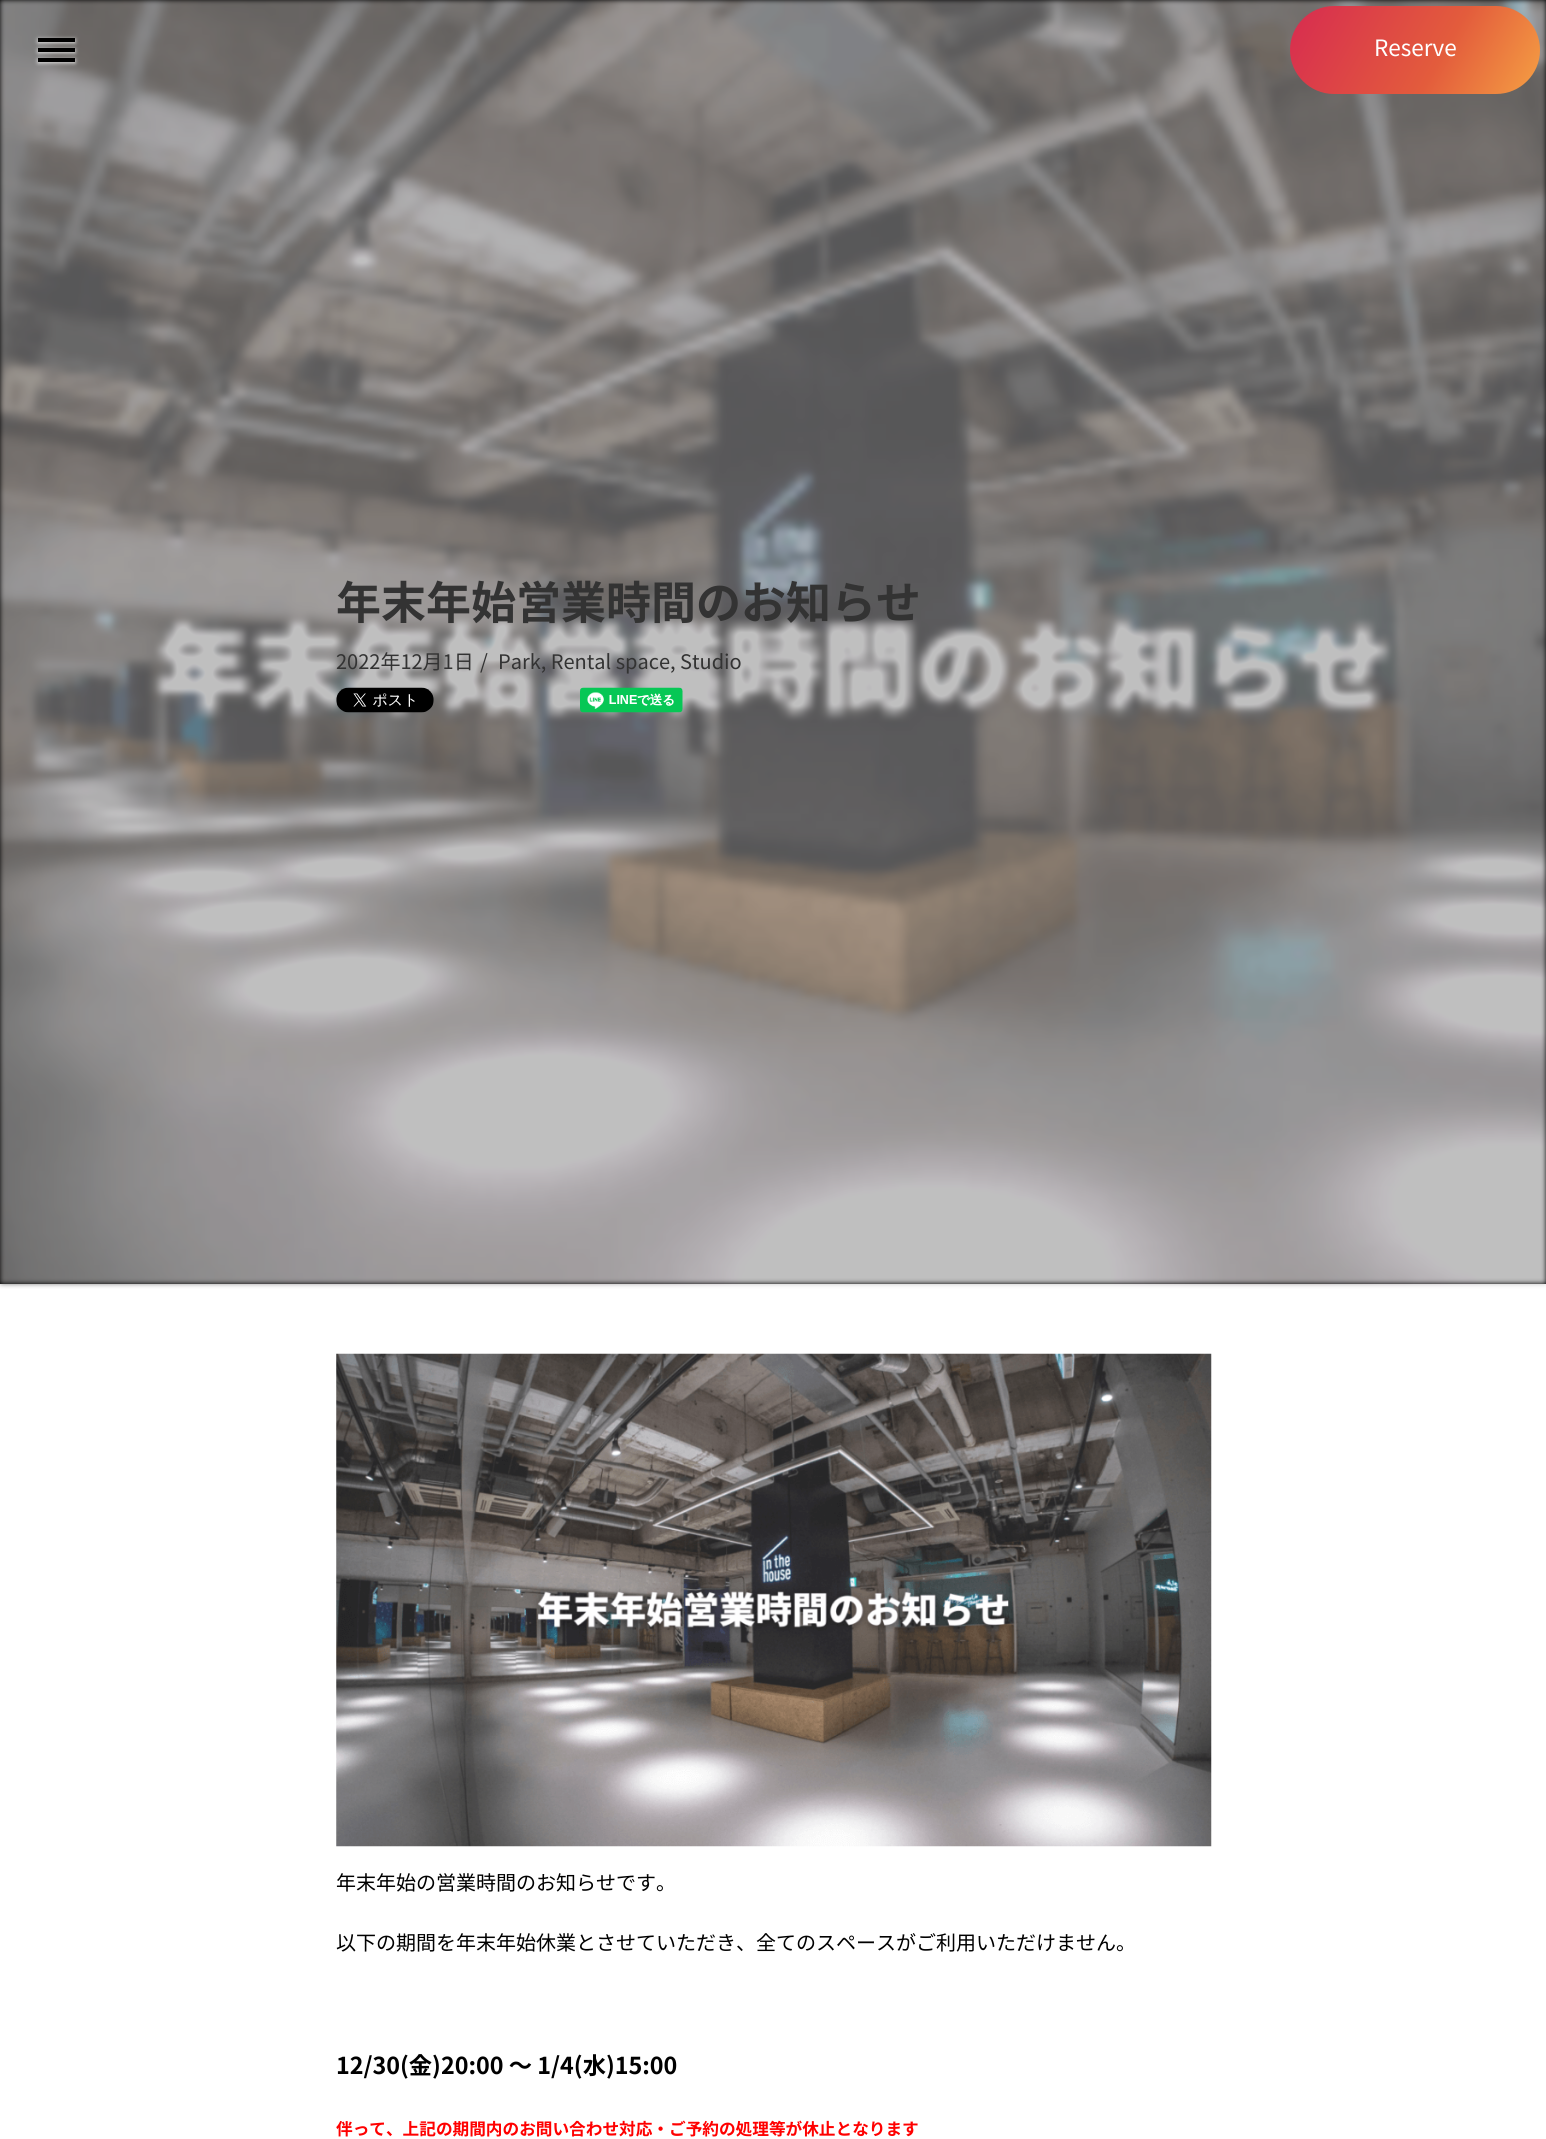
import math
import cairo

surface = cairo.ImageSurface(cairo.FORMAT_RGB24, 1546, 2139)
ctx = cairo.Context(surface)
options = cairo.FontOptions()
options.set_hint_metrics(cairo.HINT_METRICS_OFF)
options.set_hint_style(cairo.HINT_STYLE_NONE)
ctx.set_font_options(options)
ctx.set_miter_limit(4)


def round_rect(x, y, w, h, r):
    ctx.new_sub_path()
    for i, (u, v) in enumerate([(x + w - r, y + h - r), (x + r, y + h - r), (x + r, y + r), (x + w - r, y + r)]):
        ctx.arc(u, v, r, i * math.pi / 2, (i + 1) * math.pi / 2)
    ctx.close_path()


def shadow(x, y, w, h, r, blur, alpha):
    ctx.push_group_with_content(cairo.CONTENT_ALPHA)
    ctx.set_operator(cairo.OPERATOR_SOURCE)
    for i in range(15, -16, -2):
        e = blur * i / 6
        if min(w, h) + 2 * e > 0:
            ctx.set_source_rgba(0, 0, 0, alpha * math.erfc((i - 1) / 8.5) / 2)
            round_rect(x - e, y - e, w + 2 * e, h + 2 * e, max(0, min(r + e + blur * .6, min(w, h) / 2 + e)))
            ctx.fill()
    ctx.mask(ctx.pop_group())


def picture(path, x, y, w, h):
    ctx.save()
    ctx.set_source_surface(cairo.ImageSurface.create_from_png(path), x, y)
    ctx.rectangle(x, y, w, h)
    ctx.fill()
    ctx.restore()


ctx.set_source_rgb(0, 0, 0)
ctx.paint()
ctx.set_source_rgb(1, 1, 1)
ctx.rectangle(0, 1284, 1546, 855)
ctx.fill()
picture("img1.png", 0, 0, 1546, 1289)
ctx.set_source_rgb(1, 1, 1)
shadow(38, 39, 37, 4, 0, 2, 0.8)
ctx.set_source_rgb(0, 0, 0)
ctx.rectangle(38, 38, 37, 4)
ctx.fill()
ctx.set_source_rgb(1, 1, 1)
shadow(38, 49, 37, 4, 0, 2, 0.8)
ctx.set_source_rgb(0, 0, 0)
ctx.rectangle(38, 48, 37, 4)
ctx.fill()
ctx.set_source_rgb(1, 1, 1)
shadow(38, 59, 37, 4, 0, 2, 0.8)
ctx.set_source_rgb(0, 0, 0)
ctx.rectangle(38, 58, 37, 4)
ctx.fill()
gradient = cairo.LinearGradient(1302, -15, 1528, 115)
gradient.add_color_stop_rgba(0, 0.843, 0.169, 0.314, 1)
gradient.add_color_stop_rgba(0.6, 0.89, 0.361, 0.235, 1)
gradient.add_color_stop_rgba(1, 0.961, 0.627, 0.263, 1)
ctx.set_source(gradient)
round_rect(1290, 6, 250, 88, 44)
ctx.fill()
ctx.select_font_face("Noto Sans JP")
ctx.set_font_size(22.5)
ctx.set_source_rgb(1, 1, 1)
ctx.move_to(1374, 56)
ctx.show_text("Reserve")
ctx.select_font_face("Noto Sans JP", cairo.FONT_SLANT_NORMAL, cairo.FONT_WEIGHT_BOLD)
ctx.set_font_size(45)
ctx.set_source_rgb(0.2, 0.2, 0.2)
ctx.move_to(336, 619)
ctx.show_text("年末年始営業時間のお知らせ")
ctx.select_font_face("Noto Sans JP")
ctx.set_font_size(20)
ctx.move_to(336, 669)
ctx.show_text("2022年12月1日")
ctx.move_to(480, 669)
ctx.show_text("/")
ctx.move_to(498, 669)
ctx.show_text("Park, Rental space, Studio")
picture("img2.png", 336, 687, 98, 26)
picture("img3.png", 580, 687, 103, 26)
picture("img4.png", 336, 1353, 876, 494)
ctx.set_source_rgb(0, 0, 0)
ctx.move_to(336, 1890)
ctx.show_text("年末年始の営業時間のお知らせです。")
ctx.move_to(336, 1950)
ctx.show_text("以下の期間を年末年始休業とさせていただき、全てのスペースがご利用いただけません。")
ctx.select_font_face("Noto Sans JP", cairo.FONT_SLANT_NORMAL, cairo.FONT_WEIGHT_BOLD)
ctx.set_font_size(23.3)
ctx.move_to(336, 2074)
ctx.show_text("12/30(金)20:00 〜 1/4(水)15:00")
ctx.set_font_size(16.65)
ctx.set_source_rgb(1, 0, 0)
ctx.move_to(336, 2135)
ctx.show_text("伴って、上記の期間内のお問い合わせ対応・ご予約の処理等が休止となります")
surface.write_to_png("page.png")
